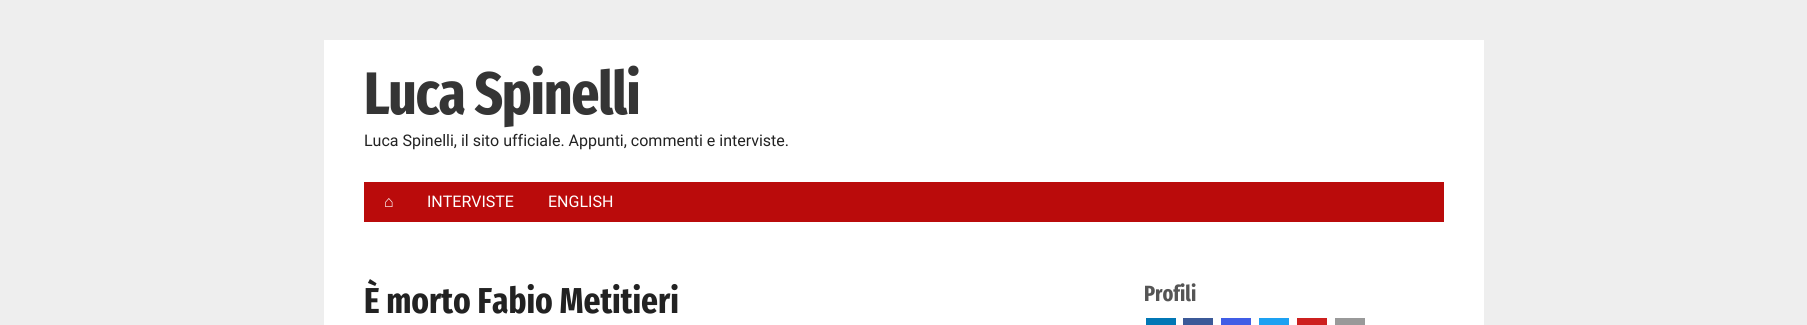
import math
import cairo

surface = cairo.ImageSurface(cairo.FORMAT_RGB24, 1807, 325)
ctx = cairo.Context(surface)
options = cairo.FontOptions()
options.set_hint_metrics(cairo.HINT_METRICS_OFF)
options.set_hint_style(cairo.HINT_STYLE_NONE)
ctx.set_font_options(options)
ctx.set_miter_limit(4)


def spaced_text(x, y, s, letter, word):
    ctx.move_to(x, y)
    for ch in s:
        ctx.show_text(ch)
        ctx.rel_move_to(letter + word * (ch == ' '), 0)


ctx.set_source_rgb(0.933, 0.933, 0.933)
ctx.paint()
ctx.set_source_rgb(1, 1, 1)
ctx.rectangle(324, 40, 1160, 285)
ctx.fill()
ctx.select_font_face("Fira Sans Extra Condensed", cairo.FONT_SLANT_NORMAL, cairo.FONT_WEIGHT_BOLD)
ctx.set_font_size(60)
ctx.set_source_rgb(0.208, 0.208, 0.208)
spaced_text(364, 114, "Luca Spinelli", -1.25, 0)
ctx.select_font_face("Roboto")
ctx.set_font_size(16)
ctx.set_source_rgb(0.133, 0.133, 0.133)
ctx.move_to(364, 146)
ctx.show_text("Luca Spinelli, il sito ufficiale. Appunti, commenti e interviste.")
ctx.set_source_rgb(0.729, 0.043, 0.043)
ctx.rectangle(364, 182, 1080, 40)
ctx.fill()
ctx.select_font_face("Liberation Sans")
ctx.set_source_rgb(1, 1, 1)
ctx.move_to(384, 207)
ctx.show_text("⌂")
ctx.select_font_face("Roboto")
ctx.move_to(427, 207)
ctx.show_text("INTERVISTE")
ctx.move_to(548, 207)
ctx.show_text("ENGLISH")
ctx.select_font_face("Fira Sans Extra Condensed", cairo.FONT_SLANT_NORMAL, cairo.FONT_WEIGHT_BOLD)
ctx.set_font_size(36)
ctx.set_source_rgb(0.133, 0.133, 0.133)
ctx.move_to(364, 313)
ctx.show_text("È morto Fabio Metitieri")
ctx.set_font_size(22)
ctx.set_source_rgb(0.333, 0.333, 0.333)
ctx.move_to(1144, 301)
ctx.show_text("Profili")
ctx.set_source_rgb(0.004, 0.467, 0.71)
ctx.rectangle(1146, 318, 30, 7)
ctx.fill()
ctx.set_source_rgb(0.231, 0.349, 0.596)
ctx.rectangle(1183, 318, 30, 7)
ctx.fill()
ctx.set_source_rgb(0.251, 0.365, 0.902)
ctx.rectangle(1221, 318, 30, 7)
ctx.fill()
ctx.set_source_rgb(0.114, 0.631, 0.949)
ctx.rectangle(1259, 318, 30, 7)
ctx.fill()
ctx.set_source_rgb(0.804, 0.125, 0.122)
ctx.rectangle(1297, 318, 30, 7)
ctx.fill()
ctx.set_source_rgb(0.6, 0.6, 0.6)
ctx.rectangle(1335, 318, 30, 7)
ctx.fill()
surface.write_to_png("page.png")
